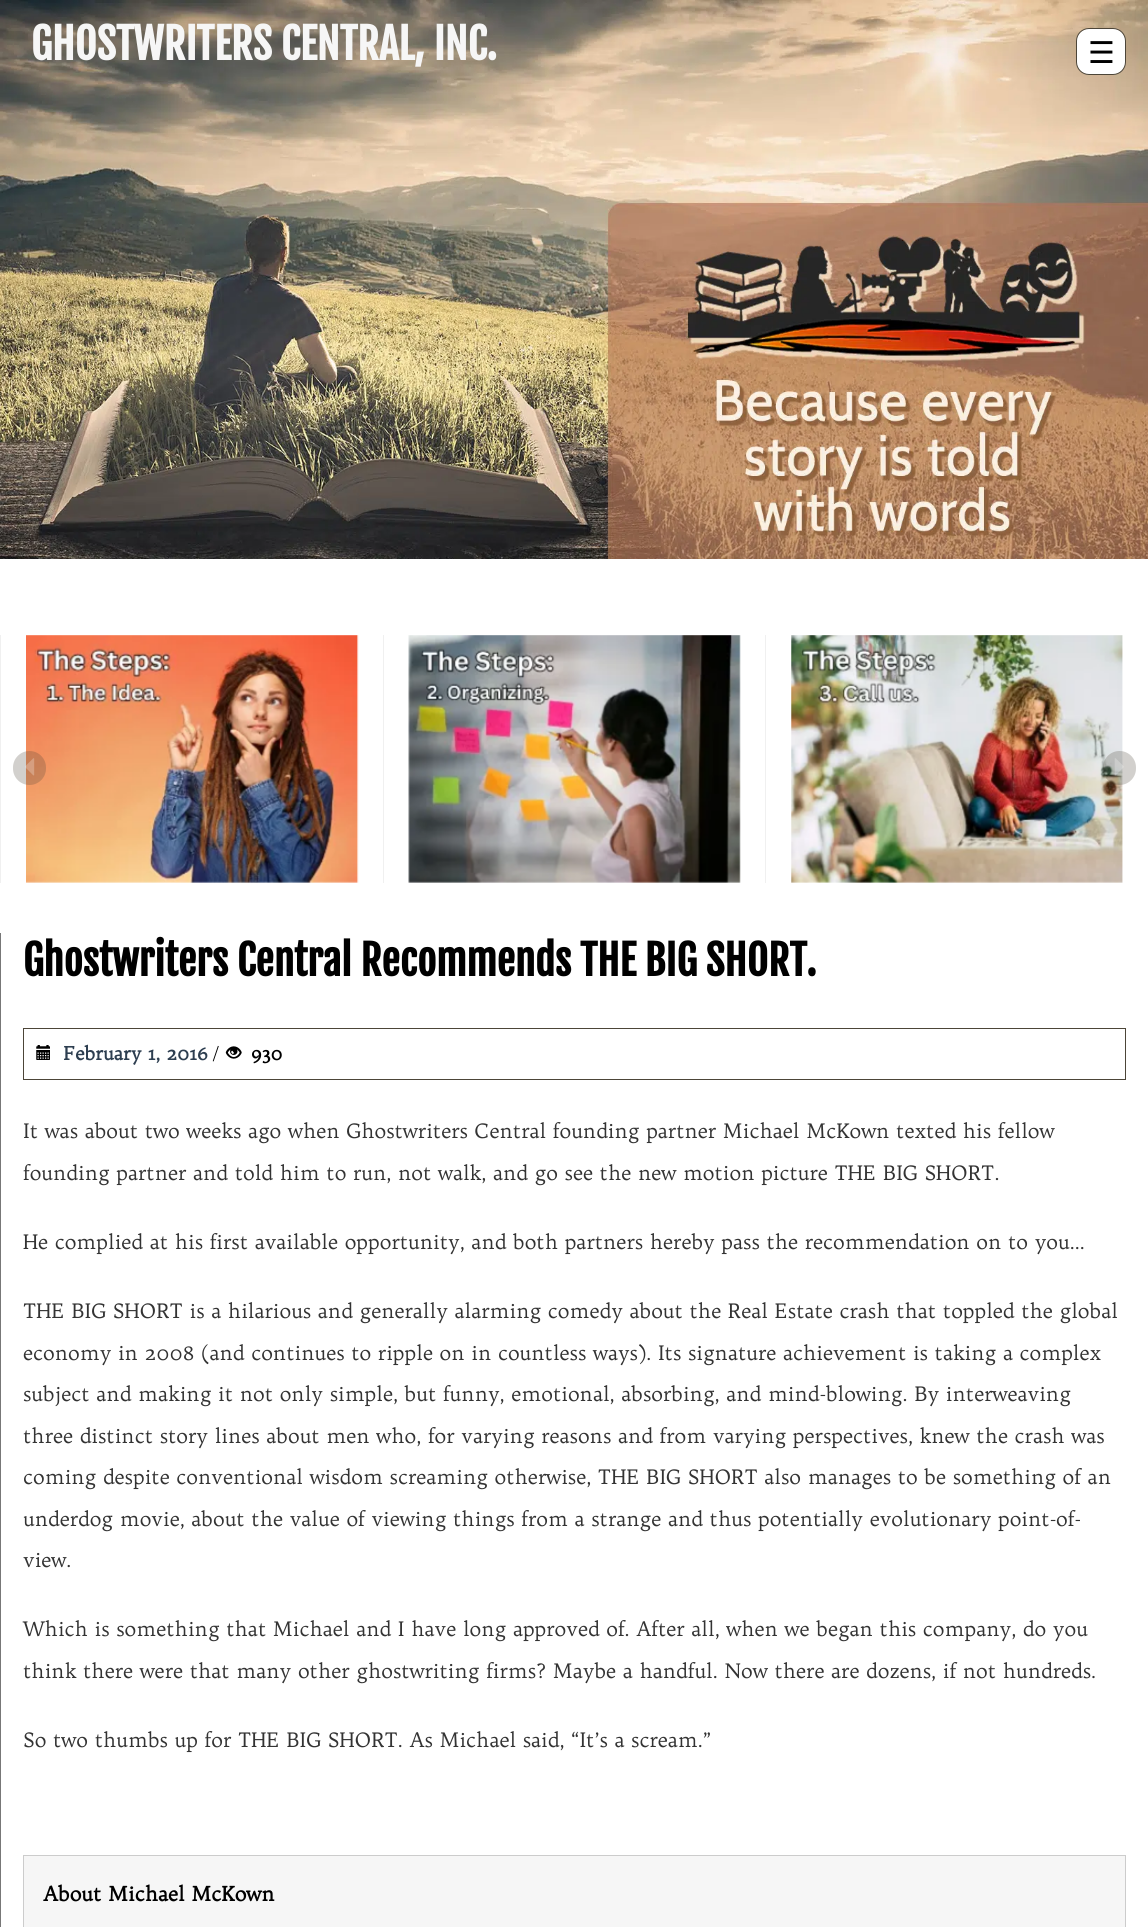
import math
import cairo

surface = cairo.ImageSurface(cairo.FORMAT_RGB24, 1148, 1927)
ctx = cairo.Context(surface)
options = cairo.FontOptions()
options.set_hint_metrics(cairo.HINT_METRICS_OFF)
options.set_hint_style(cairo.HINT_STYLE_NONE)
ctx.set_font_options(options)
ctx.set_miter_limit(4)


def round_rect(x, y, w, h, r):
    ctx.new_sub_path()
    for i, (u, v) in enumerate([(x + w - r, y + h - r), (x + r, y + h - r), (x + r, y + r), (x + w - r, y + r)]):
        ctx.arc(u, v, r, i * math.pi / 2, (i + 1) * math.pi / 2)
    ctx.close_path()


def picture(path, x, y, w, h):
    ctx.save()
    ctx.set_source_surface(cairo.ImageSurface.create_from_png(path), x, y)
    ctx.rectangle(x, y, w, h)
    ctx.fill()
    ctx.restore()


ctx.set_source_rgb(1, 1, 1)
ctx.paint()
picture("img1.png", 0, 0, 1148, 559)
ctx.select_font_face("Fjalla One", cairo.FONT_SLANT_NORMAL, cairo.FONT_WEIGHT_BOLD)
ctx.set_font_size(42)
ctx.set_source_rgb(0.961, 0.961, 0.961)
ctx.move_to(31, 60)
ctx.show_text("GHOSTWRITERS CENTRAL, INC.")
ctx.set_source_rgb(1, 1, 1)
round_rect(1076.5, 28.5, 49, 46, 12.5)
ctx.fill_preserve()
ctx.set_source_rgb(0.298, 0.271, 0.22)
ctx.set_line_width(1)
ctx.stroke()
ctx.select_font_face("DejaVu Sans")
ctx.set_font_size(30)
ctx.set_source_rgb(0, 0, 0)
ctx.move_to(1088, 63)
ctx.show_text("☰")
ctx.set_source_rgb(0.941, 0.941, 0.941)
ctx.rectangle(0, 635, 1, 248)
ctx.fill()
picture("img2.png", 26, 635, 333, 248)
ctx.rectangle(383, 635, 1, 248)
ctx.fill()
picture("img3.png", 408, 635, 333, 248)
ctx.rectangle(765, 635, 1, 248)
ctx.fill()
picture("img4.png", 791, 635, 332, 248)
ctx.set_source_rgba(0.298, 0.271, 0.22, 0.25)
round_rect(13, 751, 33, 34, 16.5)
ctx.fill()
picture("img5.png", 25, 758, 10, 18)
round_rect(1103, 751, 33, 34, 16.5)
ctx.fill()
picture("img6.png", 1114, 758, 10, 18)
ctx.set_source_rgb(0.467, 0.467, 0.467)
ctx.rectangle(0, 933, 1, 994)
ctx.fill()
ctx.select_font_face("Fjalla One", cairo.FONT_SLANT_NORMAL, cairo.FONT_WEIGHT_BOLD)
ctx.set_font_size(41)
ctx.set_source_rgb(0, 0, 0)
ctx.move_to(23, 976)
ctx.show_text("Ghostwriters Central Recommends THE BIG SHORT.")
ctx.rectangle(23.5, 1028.5, 1102, 51)
ctx.set_source_rgb(0.298, 0.271, 0.22)
ctx.stroke()
picture("img7.png", 36, 1045, 14, 15)
ctx.select_font_face("Trykker", cairo.FONT_SLANT_NORMAL, cairo.FONT_WEIGHT_BOLD)
ctx.set_font_size(18.5)
ctx.set_source_rgb(0.176, 0.243, 0.314)
ctx.move_to(63, 1060)
ctx.show_text("February 1, 2016")
ctx.select_font_face("Trykker")
ctx.set_font_size(18)
ctx.set_source_rgb(0, 0, 0)
ctx.move_to(212, 1060)
ctx.show_text("/")
picture("img8.png", 225, 1046, 17, 13)
ctx.select_font_face("Trykker", cairo.FONT_SLANT_NORMAL, cairo.FONT_WEIGHT_BOLD)
ctx.move_to(251, 1060)
ctx.show_text("930")
ctx.select_font_face("Trykker")
ctx.set_font_size(20)
ctx.set_source_rgb(0.2, 0.2, 0.2)
ctx.move_to(23, 1138)
ctx.show_text("It was about two weeks ago when Ghostwriters Central founding partner Michael McKown texted his fellow")
ctx.move_to(23, 1180)
ctx.show_text("founding partner and told him to run, not walk, and go see the new motion picture THE BIG SHORT.")
ctx.move_to(23, 1249)
ctx.show_text("He complied at his first available opportunity, and both partners hereby pass the recommendation on to you…")
ctx.move_to(23, 1318)
ctx.show_text("THE BIG SHORT is a hilarious and generally alarming comedy about the Real Estate crash that toppled the global")
ctx.move_to(23, 1360)
ctx.show_text("economy in 2008 (and continues to ripple on in countless ways). Its signature achievement is taking a complex")
ctx.move_to(23, 1401)
ctx.show_text("subject and making it not only simple, but funny, emotional, absorbing, and mind-blowing. By interweaving")
ctx.move_to(23, 1443)
ctx.show_text("three distinct story lines about men who, for varying reasons and from varying perspectives, knew the crash was")
ctx.move_to(23, 1484)
ctx.show_text("coming despite conventional wisdom screaming otherwise, THE BIG SHORT also manages to be something of an")
ctx.move_to(23, 1526)
ctx.show_text("underdog movie, about the value of viewing things from a strange and thus potentially evolutionary point-of-")
ctx.move_to(23, 1567)
ctx.show_text("view.")
ctx.move_to(23, 1636)
ctx.show_text("Which is something that Michael and I have long approved of. After all, when we began this company, do you")
ctx.move_to(23, 1678)
ctx.show_text("think there were that many other ghostwriting firms? Maybe a handful. Now there are dozens, if not hundreds.")
ctx.move_to(23, 1747)
ctx.show_text("So two thumbs up for THE BIG SHORT. As Michael said, “It’s a scream.”")
ctx.set_source_rgb(0.961, 0.961, 0.961)
ctx.rectangle(23.5, 1855.5, 1102, 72)
ctx.fill_preserve()
ctx.set_source_rgb(0.8, 0.8, 0.8)
ctx.stroke()
ctx.select_font_face("Trykker", cairo.FONT_SLANT_NORMAL, cairo.FONT_WEIGHT_BOLD)
ctx.set_source_rgb(0, 0, 0)
ctx.move_to(43, 1901)
ctx.show_text("About Michael McKown")
surface.write_to_png("page.png")
